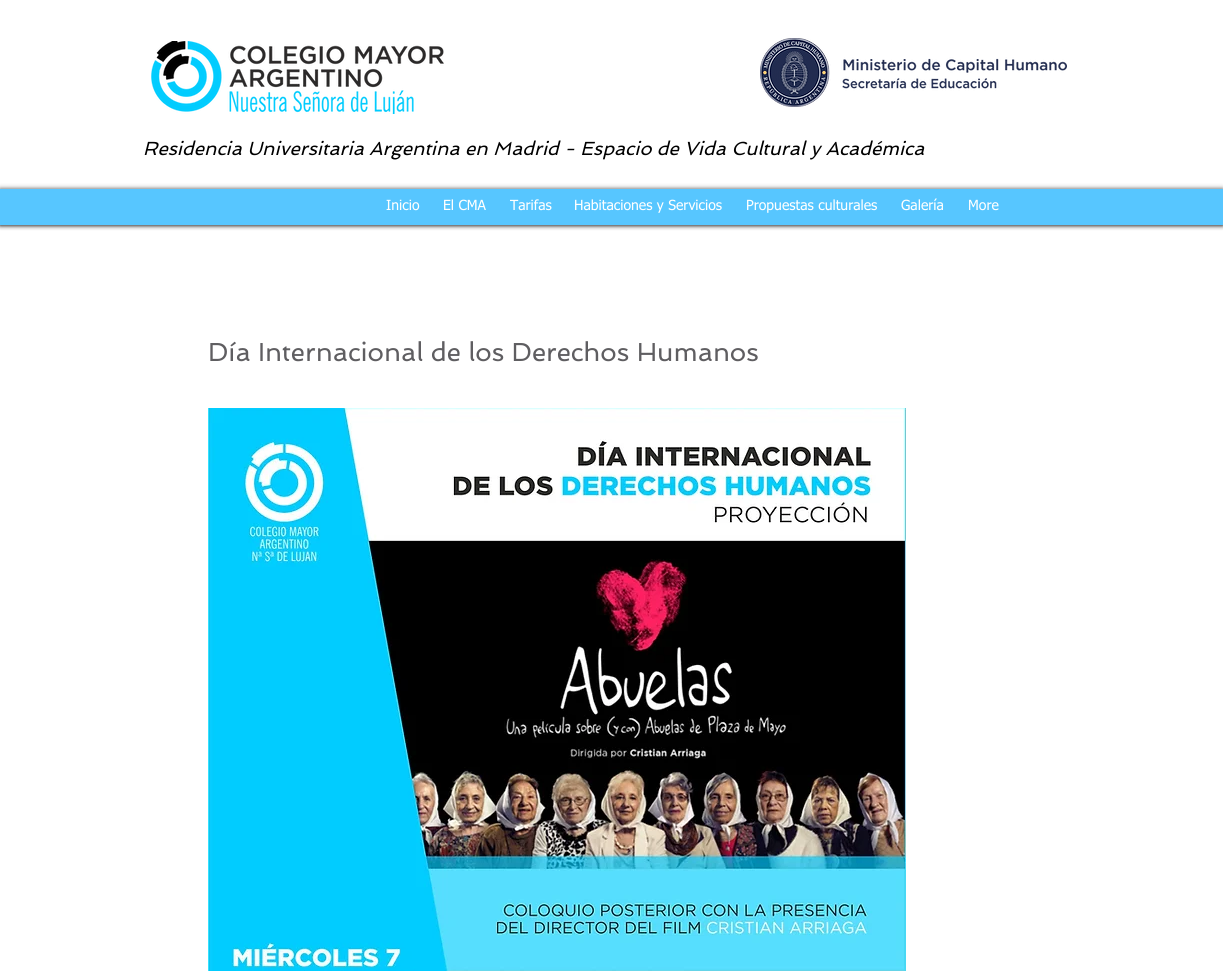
import math
import cairo

surface = cairo.ImageSurface(cairo.FORMAT_RGB24, 1223, 971)
ctx = cairo.Context(surface)
options = cairo.FontOptions()
options.set_hint_metrics(cairo.HINT_METRICS_OFF)
options.set_hint_style(cairo.HINT_STYLE_NONE)
ctx.set_font_options(options)
ctx.set_miter_limit(4)


def round_rect(x, y, w, h, r):
    ctx.new_sub_path()
    for i, (u, v) in enumerate([(x + w - r, y + h - r), (x + r, y + h - r), (x + r, y + r), (x + w - r, y + r)]):
        ctx.arc(u, v, r, i * math.pi / 2, (i + 1) * math.pi / 2)
    ctx.close_path()


def shadow(x, y, w, h, r, blur, alpha):
    ctx.push_group_with_content(cairo.CONTENT_ALPHA)
    ctx.set_operator(cairo.OPERATOR_SOURCE)
    for i in range(15, -16, -2):
        e = blur * i / 6
        if min(w, h) + 2 * e > 0:
            ctx.set_source_rgba(0, 0, 0, alpha * math.erfc((i - 1) / 8.5) / 2)
            round_rect(x - e, y - e, w + 2 * e, h + 2 * e, max(0, min(r + e + blur * .6, min(w, h) / 2 + e)))
            ctx.fill()
    ctx.mask(ctx.pop_group())


def picture(path, x, y, w, h):
    ctx.save()
    ctx.set_source_surface(cairo.ImageSurface.create_from_png(path), x, y)
    ctx.rectangle(x, y, w, h)
    ctx.fill()
    ctx.restore()


ctx.set_source_rgb(1, 1, 1)
ctx.paint()
ctx.save()
ctx.rectangle(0, 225, 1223, 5)
ctx.clip()
ctx.set_source_rgb(0, 0, 0)
shadow(0, 0, 1223, 225, 0, 2.5, 0.7)
ctx.restore()
picture("img1.png", 151, 41, 293, 73)
picture("img2.png", 760, 38, 307, 69)
ctx.select_font_face("Spinnaker", cairo.FONT_SLANT_ITALIC)
ctx.set_font_size(19)
ctx.set_source_rgb(0, 0, 0)
ctx.move_to(143, 155)
ctx.show_text("Residencia Universitaria Argentina en Madrid - Espacio de Vida Cultural y Académica")
ctx.set_source_rgb(0, 0, 0)
shadow(0, 189, 1223, 36, 0, 2.5, 0.7)
ctx.set_source_rgb(0.341, 0.776, 1)
ctx.rectangle(0, 189, 1223, 36)
ctx.fill()
ctx.select_font_face("tahoma")
ctx.set_font_size(14)
ctx.set_source_rgb(1, 1, 1)
ctx.move_to(386, 210)
ctx.show_text("Inicio")
ctx.move_to(443, 210)
ctx.show_text("El CMA")
ctx.move_to(510, 210)
ctx.show_text("Tarifas")
ctx.move_to(574, 210)
ctx.show_text("Habitaciones y Servicios")
ctx.move_to(746, 210)
ctx.show_text("Propuestas culturales")
ctx.move_to(901, 210)
ctx.show_text("Galería")
ctx.move_to(968, 210)
ctx.show_text("More")
ctx.select_font_face("Spinnaker")
ctx.set_font_size(26)
ctx.set_source_rgb(0.373, 0.369, 0.38)
ctx.move_to(208, 361)
ctx.show_text("Día Internacional de los Derechos Humanos")
picture("img3.png", 208, 408, 698, 563)
surface.write_to_png("page.png")
